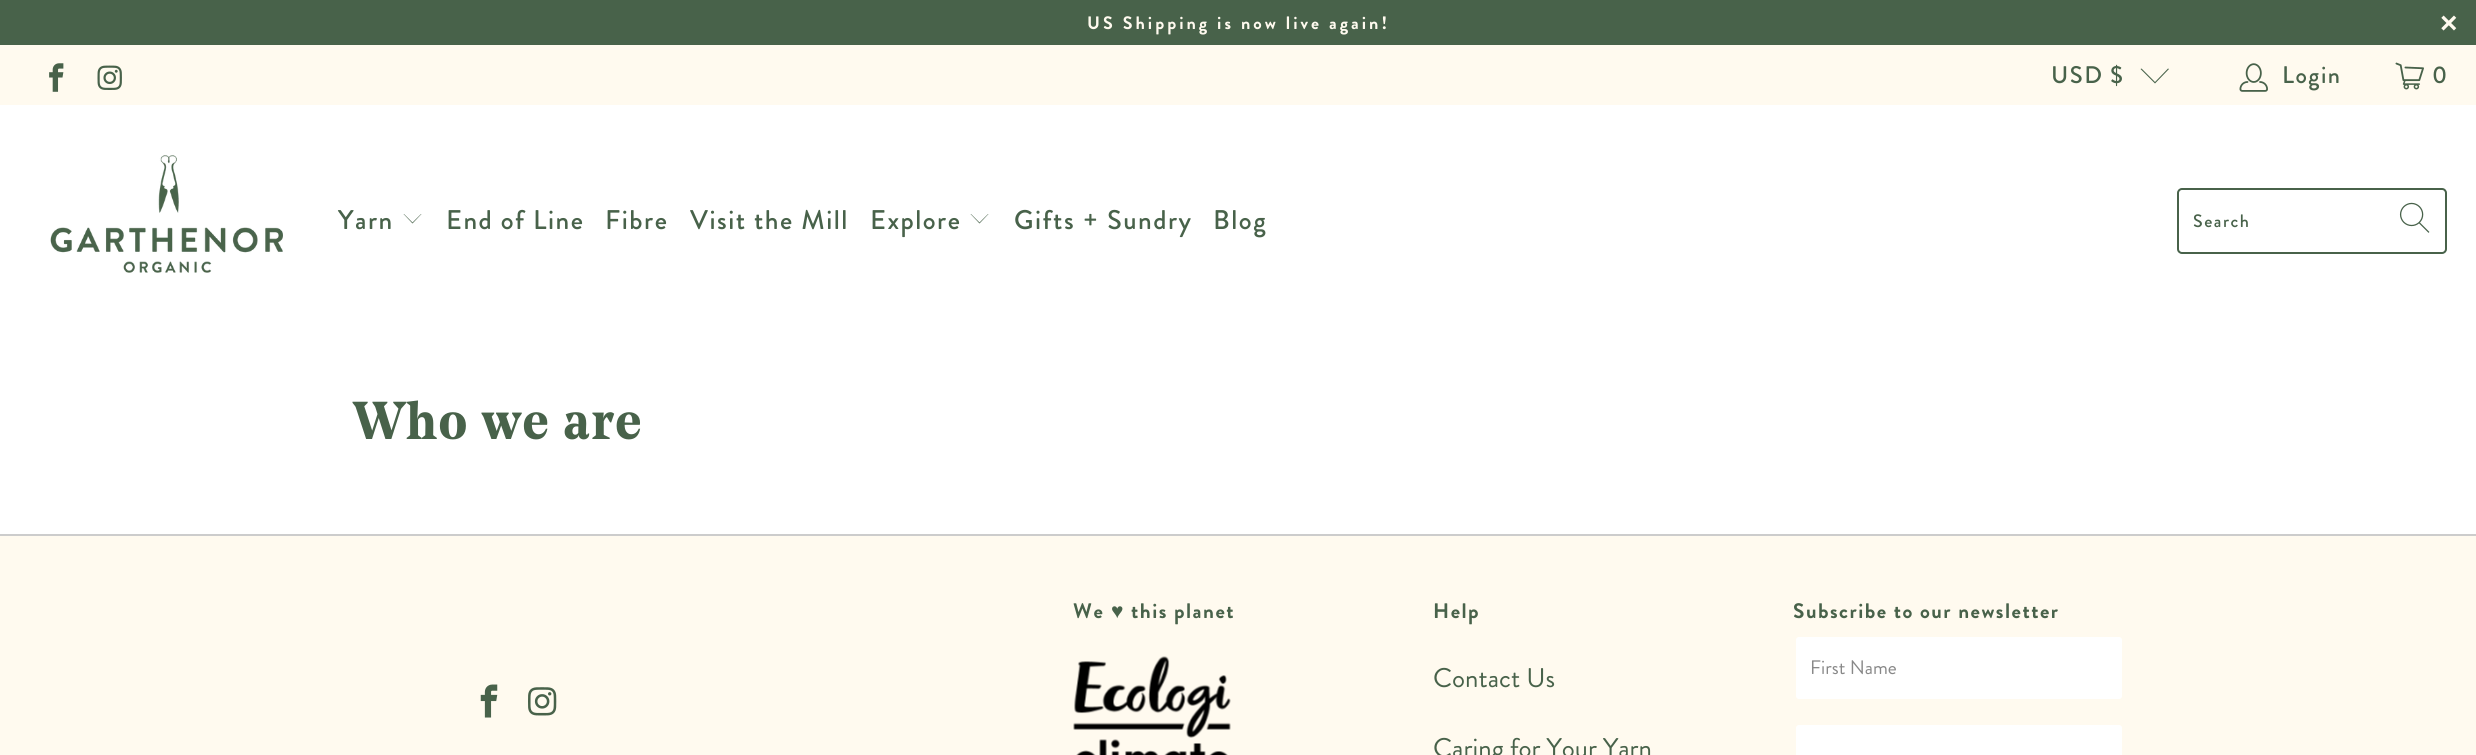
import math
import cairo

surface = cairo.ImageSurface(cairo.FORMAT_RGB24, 2476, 755)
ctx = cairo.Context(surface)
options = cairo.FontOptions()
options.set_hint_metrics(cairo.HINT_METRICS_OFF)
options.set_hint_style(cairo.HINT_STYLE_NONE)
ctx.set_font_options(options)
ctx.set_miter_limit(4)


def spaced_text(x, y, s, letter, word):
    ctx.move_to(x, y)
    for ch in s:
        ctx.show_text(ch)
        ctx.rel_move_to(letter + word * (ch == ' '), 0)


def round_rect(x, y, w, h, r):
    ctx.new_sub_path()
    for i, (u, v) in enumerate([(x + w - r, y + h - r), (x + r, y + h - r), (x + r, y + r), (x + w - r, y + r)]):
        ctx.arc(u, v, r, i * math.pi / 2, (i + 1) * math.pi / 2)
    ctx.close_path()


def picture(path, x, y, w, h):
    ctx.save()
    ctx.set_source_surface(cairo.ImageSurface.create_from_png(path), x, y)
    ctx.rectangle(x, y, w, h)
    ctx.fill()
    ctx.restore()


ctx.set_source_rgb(1, 1, 1)
ctx.paint()
ctx.set_source_rgb(0.282, 0.384, 0.29)
ctx.rectangle(0, 0, 2476, 45)
ctx.fill()
ctx.select_font_face("Brandon Grotesque", cairo.FONT_SLANT_NORMAL, cairo.FONT_WEIGHT_BOLD)
ctx.set_font_size(18)
ctx.set_source_rgb(1, 0.98, 0.937)
spaced_text(1087, 29, "US Shipping is now live again!", 3, 0)
ctx.select_font_face("Liberation Sans", cairo.FONT_SLANT_NORMAL, cairo.FONT_WEIGHT_BOLD)
ctx.set_font_size(30)
spaced_text(2440, 33, "×", 3, 0)
ctx.rectangle(0, 45, 2476, 60)
ctx.fill()
picture("img1.png", 49, 63, 15, 29)
picture("img2.png", 97, 65, 25, 25)
ctx.select_font_face("Brandon Grotesque Medium")
ctx.set_font_size(24)
ctx.set_source_rgb(0.282, 0.384, 0.29)
spaced_text(2051, 83, "USD $", 1.5, 0)
ctx.new_path()
ctx.move_to(2155, 83.5)
ctx.line_to(2140.5, 69)
ctx.line_to(2141.5, 68.5)
ctx.line_to(2155, 82)
ctx.line_to(2168, 68.5)
ctx.line_to(2169, 69)
ctx.close_path()
ctx.fill()
picture("img3.png", 2239, 63, 29, 29)
spaced_text(2282, 83, "Login", 1.5, 0)
picture("img4.png", 2395, 62, 29, 28)
spaced_text(2432, 83, "0", 1.5, 0)
picture("img5.png", 50, 155, 233, 118)
ctx.set_font_size(27)
spaced_text(338, 229, "Yarn", 1.5, 0)
ctx.new_path()
ctx.move_to(412.5, 223.5)
ctx.line_to(403.5, 214)
ctx.line_to(404, 214)
ctx.line_to(412.5, 222.5)
ctx.line_to(421, 214)
ctx.line_to(421.5, 214)
ctx.close_path()
ctx.fill()
spaced_text(446, 229, "End of Line", 1.5, 0)
spaced_text(605, 229, "Fibre", 1.5, 0)
spaced_text(690, 229, "Visit the Mill", 1.5, 0)
spaced_text(870, 229, "Explore", 1.5, 0)
ctx.new_path()
ctx.move_to(979.5, 223.5)
ctx.line_to(970.5, 214)
ctx.line_to(971, 214)
ctx.line_to(979.5, 222.5)
ctx.line_to(988, 214)
ctx.line_to(988.5, 214)
ctx.close_path()
ctx.fill()
spaced_text(1014, 229, "Gifts + Sundry", 1.5, 0)
spaced_text(1213, 229, "Blog", 1.5, 0)
round_rect(2178, 189, 268, 64, 4)
ctx.stroke()
ctx.set_font_size(18)
spaced_text(2193, 227, "Search", 1.5, 0)
picture("img6.png", 2399, 202, 31, 31)
ctx.select_font_face("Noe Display", cairo.FONT_SLANT_NORMAL, cairo.FONT_WEIGHT_BOLD)
ctx.set_font_size(51)
spaced_text(353, 439, "Who we are", 3, 0)
ctx.set_source_rgb(1, 0.98, 0.937)
ctx.rectangle(0, 536, 2476, 219)
ctx.fill()
ctx.set_source_rgb(0.8, 0.8, 0.8)
ctx.rectangle(0, 534, 2476, 2)
ctx.fill()
ctx.select_font_face("Brandon Grotesque", cairo.FONT_SLANT_NORMAL, cairo.FONT_WEIGHT_BOLD)
ctx.set_font_size(21)
ctx.set_source_rgb(0.282, 0.384, 0.29)
spaced_text(1073, 618, "We", 1.5, 0)
ctx.select_font_face("Liberation Sans", cairo.FONT_SLANT_NORMAL, cairo.FONT_WEIGHT_BOLD)
spaced_text(1111, 618, "♥", 1.5, 0)
ctx.select_font_face("Brandon Grotesque", cairo.FONT_SLANT_NORMAL, cairo.FONT_WEIGHT_BOLD)
spaced_text(1131, 618, "this planet", 1.5, 0)
picture("img7.png", 1073, 656, 158, 99)
spaced_text(1433, 618, "Help", 1.5, 0)
ctx.select_font_face("Brandon Grotesque")
ctx.set_font_size(27)
ctx.move_to(1433, 687)
ctx.show_text("Contact Us")
ctx.move_to(1433, 757)
ctx.show_text("Caring for Your Yarn")
ctx.select_font_face("Brandon Grotesque", cairo.FONT_SLANT_NORMAL, cairo.FONT_WEIGHT_BOLD)
ctx.set_font_size(21)
spaced_text(1793, 618, "Subscribe to our newsletter", 1.5, 0)
ctx.set_source_rgb(1, 1, 1)
round_rect(1795, 636, 328, 64, 4)
ctx.fill_preserve()
ctx.set_source_rgb(1, 0.98, 0.937)
ctx.stroke()
ctx.select_font_face("Brandon Grotesque")
ctx.set_font_size(19.5)
ctx.set_source_rgb(0.533, 0.533, 0.533)
ctx.move_to(1810, 674)
ctx.show_text("First Name")
ctx.set_source_rgb(1, 1, 1)
round_rect(1795, 724, 328, 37, 4)
ctx.fill_preserve()
ctx.set_source_rgb(1, 0.98, 0.937)
ctx.stroke()
picture("img8.png", 480, 684, 18, 34)
picture("img9.png", 528, 687, 29, 29)
surface.write_to_png("page.png")
